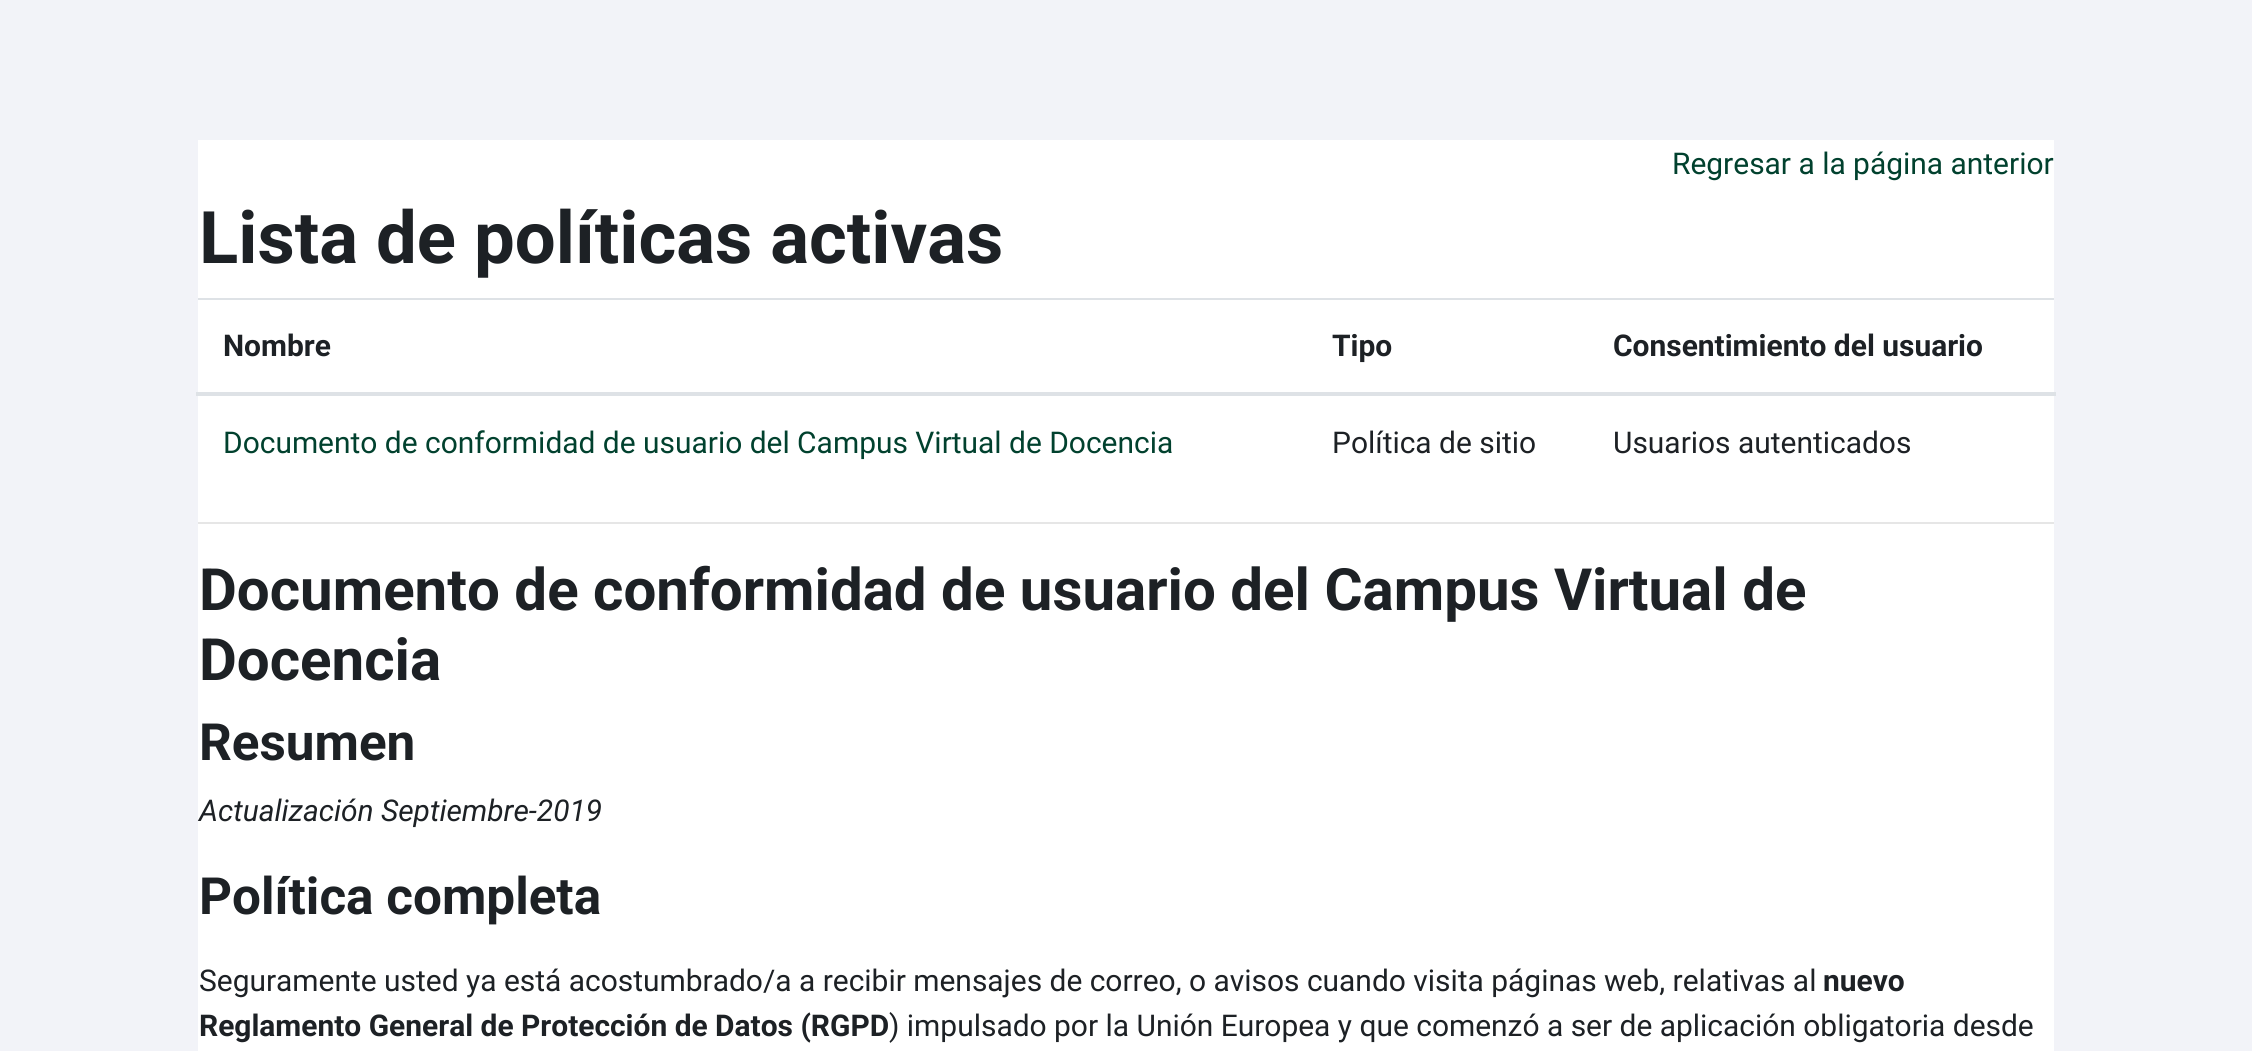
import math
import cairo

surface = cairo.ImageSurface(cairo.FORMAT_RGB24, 2252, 1051)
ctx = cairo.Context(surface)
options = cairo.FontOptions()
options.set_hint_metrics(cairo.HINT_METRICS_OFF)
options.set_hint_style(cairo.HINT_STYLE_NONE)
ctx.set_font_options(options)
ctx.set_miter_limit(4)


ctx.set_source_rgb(0.949, 0.953, 0.969)
ctx.paint()
ctx.set_source_rgb(1, 1, 1)
ctx.rectangle(198, 140, 1856, 911)
ctx.fill()
ctx.select_font_face("Roboto")
ctx.set_font_size(29.93)
ctx.set_source_rgb(0.004, 0.255, 0.18)
ctx.move_to(1672, 174)
ctx.show_text("Regresar a la página anterior")
ctx.select_font_face("Roboto", cairo.FONT_SLANT_NORMAL, cairo.FONT_WEIGHT_BOLD)
ctx.set_font_size(72.5)
ctx.set_source_rgb(0.114, 0.129, 0.145)
ctx.move_to(199, 263)
ctx.show_text("Lista de políticas activas")
ctx.set_font_size(29.93)
ctx.move_to(223, 356)
ctx.show_text("Nombre")
ctx.move_to(1332, 356)
ctx.show_text("Tipo")
ctx.set_source_rgb(0.871, 0.886, 0.902)
ctx.rectangle(198, 298, 1856, 2)
ctx.fill()
ctx.rectangle(196, 392, 1860, 4)
ctx.fill()
ctx.set_source_rgb(0.114, 0.129, 0.145)
ctx.move_to(1613, 356)
ctx.show_text("Consentimiento del usuario")
ctx.select_font_face("Roboto")
ctx.set_source_rgb(0.004, 0.255, 0.18)
ctx.move_to(223, 453)
ctx.show_text("Documento de conformidad de usuario del Campus Virtual de Docencia")
ctx.set_source_rgb(0.114, 0.129, 0.145)
ctx.move_to(1332, 453)
ctx.show_text("Política de sitio")
ctx.move_to(1613, 453)
ctx.show_text("Usuarios autenticados")
ctx.set_source_rgb(0.902, 0.902, 0.902)
ctx.rectangle(198, 522, 1856, 2)
ctx.fill()
ctx.select_font_face("Roboto", cairo.FONT_SLANT_NORMAL, cairo.FONT_WEIGHT_BOLD)
ctx.set_font_size(58.25)
ctx.set_source_rgb(0.114, 0.129, 0.145)
ctx.move_to(199, 610)
ctx.show_text("Documento de conformidad de usuario del Campus Virtual de")
ctx.move_to(199, 680)
ctx.show_text("Docencia")
ctx.set_font_size(51.25)
ctx.move_to(199, 760)
ctx.show_text("Resumen")
ctx.select_font_face("Roboto", cairo.FONT_SLANT_ITALIC)
ctx.set_font_size(29.93)
ctx.move_to(199, 821)
ctx.show_text("Actualización Septiembre-2019")
ctx.select_font_face("Roboto", cairo.FONT_SLANT_NORMAL, cairo.FONT_WEIGHT_BOLD)
ctx.set_font_size(51.25)
ctx.move_to(199, 914)
ctx.show_text("Política completa")
ctx.select_font_face("Roboto")
ctx.set_font_size(29.93)
ctx.move_to(199, 991)
ctx.show_text("Seguramente usted ya está acostumbrado/a a recibir mensajes de correo, o avisos cuando visita páginas web, relativas al")
ctx.select_font_face("Roboto", cairo.FONT_SLANT_NORMAL, cairo.FONT_WEIGHT_BOLD)
ctx.move_to(1823, 991)
ctx.show_text("nuevo")
ctx.move_to(199, 1036)
ctx.show_text("Reglamento General de Protección de Datos (RGPD")
ctx.select_font_face("Roboto")
ctx.move_to(889, 1036)
ctx.show_text(") impulsado por la Unión Europea y que comenzó a ser de aplicación obligatoria desde")
surface.write_to_png("page.png")
